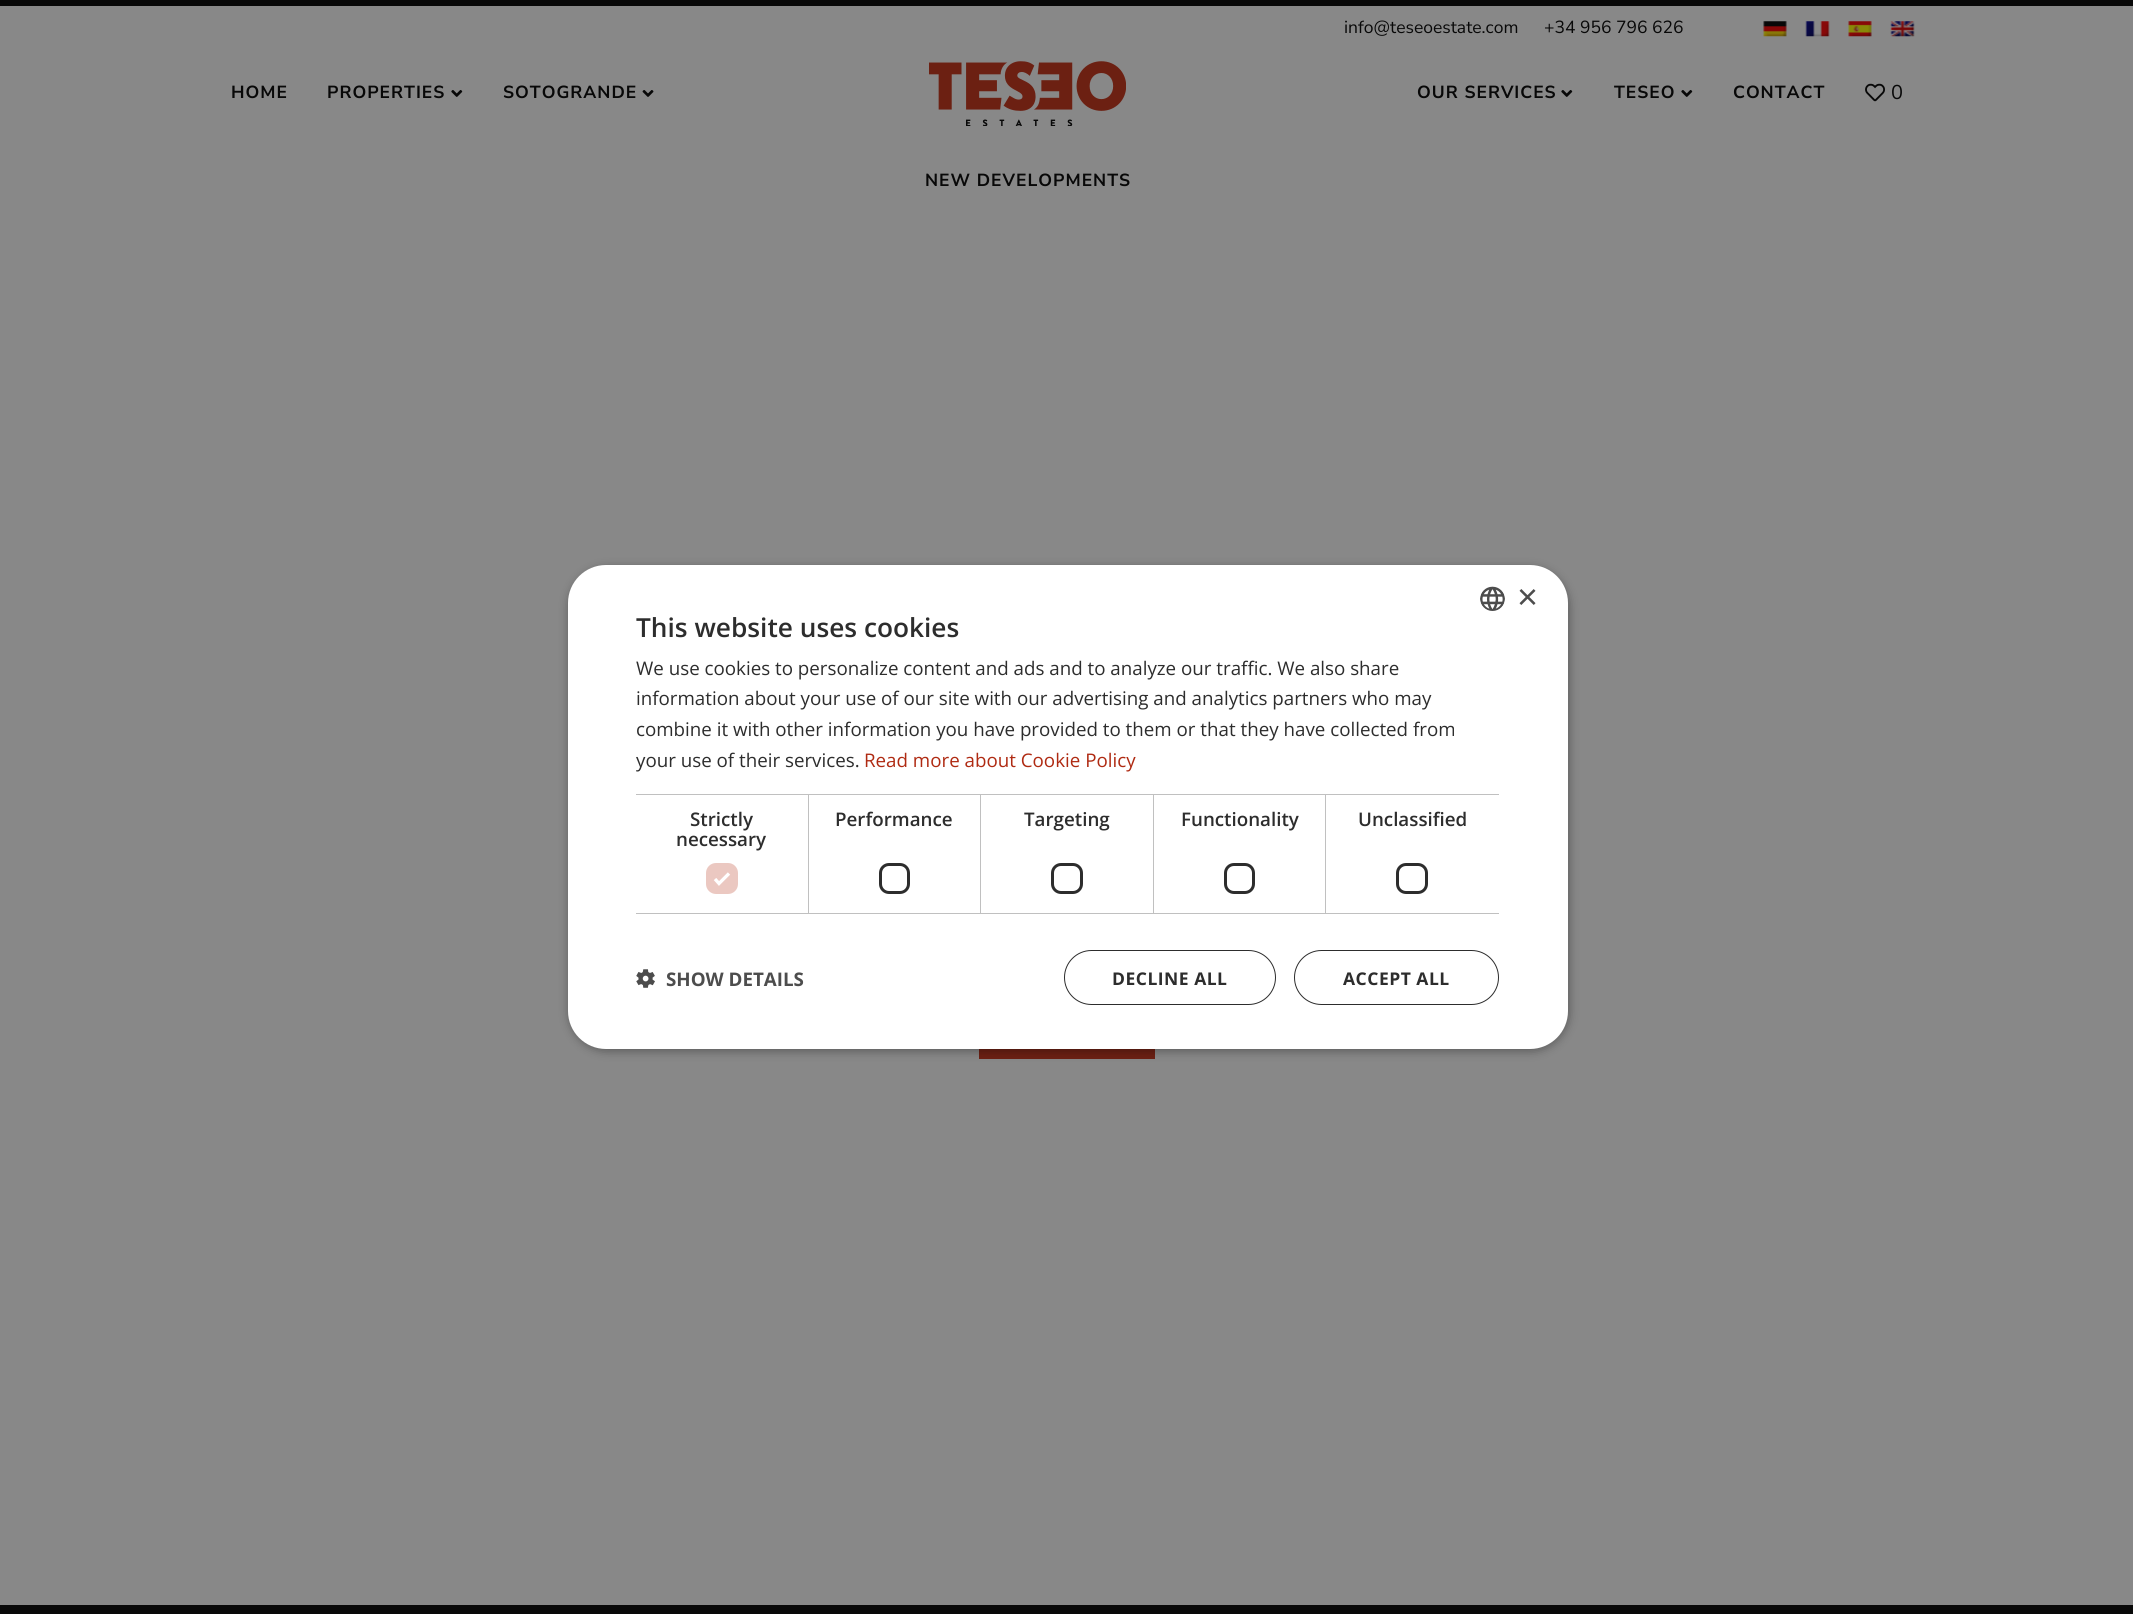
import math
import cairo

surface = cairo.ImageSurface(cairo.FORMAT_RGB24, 2133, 1614)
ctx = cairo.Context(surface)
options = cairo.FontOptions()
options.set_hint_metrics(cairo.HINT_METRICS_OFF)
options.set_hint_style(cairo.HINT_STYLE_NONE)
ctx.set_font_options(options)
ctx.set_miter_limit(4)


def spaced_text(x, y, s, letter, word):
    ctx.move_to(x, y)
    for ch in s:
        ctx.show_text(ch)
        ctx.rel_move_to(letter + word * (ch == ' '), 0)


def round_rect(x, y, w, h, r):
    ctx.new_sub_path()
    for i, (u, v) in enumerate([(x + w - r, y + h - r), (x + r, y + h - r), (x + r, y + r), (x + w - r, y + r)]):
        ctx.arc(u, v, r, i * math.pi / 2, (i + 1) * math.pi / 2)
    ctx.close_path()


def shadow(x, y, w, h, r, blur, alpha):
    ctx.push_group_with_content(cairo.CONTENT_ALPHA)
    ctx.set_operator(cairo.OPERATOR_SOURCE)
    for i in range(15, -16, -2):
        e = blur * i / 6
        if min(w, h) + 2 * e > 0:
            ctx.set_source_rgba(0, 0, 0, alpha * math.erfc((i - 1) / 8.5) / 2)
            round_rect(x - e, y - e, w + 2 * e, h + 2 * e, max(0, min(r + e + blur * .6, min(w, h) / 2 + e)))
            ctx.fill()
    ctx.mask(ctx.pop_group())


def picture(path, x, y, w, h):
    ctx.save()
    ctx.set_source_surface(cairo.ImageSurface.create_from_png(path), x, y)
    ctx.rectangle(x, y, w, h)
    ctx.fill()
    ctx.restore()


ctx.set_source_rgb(0.533, 0.533, 0.533)
ctx.paint()
ctx.set_source_rgb(0.035, 0.035, 0.035)
ctx.rectangle(0, 0, 2133, 6)
ctx.fill()
ctx.select_font_face("Nunito Sans")
ctx.set_font_size(17.5)
ctx.move_to(1344, 33)
ctx.show_text("info@teseoestate.com")
ctx.move_to(1544, 33)
ctx.show_text("+34 956 796 626")
picture("img1.png", 1763, 21, 24, 16)
picture("img2.png", 1805, 21, 25, 16)
picture("img3.png", 1848, 21, 24, 16)
picture("img4.png", 1890, 21, 25, 16)
ctx.select_font_face("Nunito Sans", cairo.FONT_SLANT_NORMAL, cairo.FONT_WEIGHT_BOLD)
spaced_text(231, 98, "HOME", 1, 0)
spaced_text(327, 98, "PROPERTIES", 1, 0)
picture("img5.png", 451, 90, 12, 7)
spaced_text(503, 98, "SOTOGRANDE", 1, 0)
picture("img6.png", 642, 90, 12, 7)
picture("img7.png", 929, 61, 197, 65)
spaced_text(1417, 98, "OUR SERVICES", 1, 0)
picture("img5.png", 1561, 90, 12, 7)
spaced_text(1614, 98, "TESEO", 1, 0)
picture("img5.png", 1681, 90, 12, 7)
spaced_text(1733, 98, "CONTACT", 1, 0)
picture("img8.png", 1865, 83, 20, 19)
ctx.select_font_face("Nunito Sans")
ctx.set_font_size(20)
ctx.move_to(1891, 99)
ctx.show_text("0")
ctx.select_font_face("Nunito Sans", cairo.FONT_SLANT_NORMAL, cairo.FONT_WEIGHT_BOLD)
ctx.set_font_size(17.5)
spaced_text(925, 186, "NEW DEVELOPMENTS", 1, 0)
ctx.set_source_rgb(0.424, 0.125, 0.075)
ctx.rectangle(979, 1049, 176, 10)
ctx.fill()
ctx.set_source_rgb(0, 0, 0)
shadow(569, 568, 1000, 483, 38, 5, 0.35)
ctx.set_source_rgb(1, 1, 1)
round_rect(568, 565, 1000, 484, 38)
ctx.fill()
picture("img9.png", 1480, 586, 25, 25)
ctx.select_font_face("Liberation Sans")
ctx.set_font_size(36)
ctx.set_source_rgb(0.302, 0.302, 0.302)
ctx.move_to(1517, 609)
ctx.show_text("×")
ctx.select_font_face("Open Sans SemiBold")
ctx.set_font_size(26.25)
ctx.set_source_rgb(0.176, 0.176, 0.176)
ctx.move_to(636, 637)
ctx.show_text("This website uses cookies")
ctx.select_font_face("Open Sans")
ctx.set_font_size(18.75)
ctx.move_to(636, 675)
ctx.show_text("We use cookies to personalize content and ads and to analyze our traffic. We also share")
ctx.move_to(636, 705)
ctx.show_text("information about your use of our site with our advertising and analytics partners who may")
ctx.move_to(636, 736)
ctx.show_text("combine it with other information you have provided to them or that they have collected from")
ctx.move_to(636, 767)
ctx.show_text("your use of their services.")
ctx.set_source_rgb(0.686, 0.165, 0.071)
ctx.move_to(864, 767)
ctx.show_text("Read more about Cookie Policy")
ctx.set_source_rgb(0.753, 0.753, 0.753)
ctx.rectangle(636, 794, 863, 1)
ctx.fill()
ctx.rectangle(808, 794, 1, 120)
ctx.fill()
ctx.rectangle(636, 913, 173, 1)
ctx.fill()
ctx.select_font_face("Open Sans SemiBold")
ctx.set_source_rgb(0.176, 0.176, 0.176)
ctx.move_to(690, 826)
ctx.show_text("Strictly")
ctx.move_to(676, 846)
ctx.show_text("necessary")
ctx.set_source_rgb(0.918, 0.784, 0.757)
round_rect(706, 863, 32, 31, 10)
ctx.fill()
ctx.new_path()
ctx.move_to(715, 879)
ctx.line_to(719, 883.5)
ctx.line_to(729, 873.5)
ctx.set_source_rgb(1, 1, 1)
ctx.set_line_width(3.3)
ctx.stroke()
ctx.set_source_rgb(0.753, 0.753, 0.753)
ctx.rectangle(980, 794, 1, 120)
ctx.fill()
ctx.rectangle(809, 913, 172, 1)
ctx.fill()
ctx.set_source_rgb(0.176, 0.176, 0.176)
ctx.move_to(835, 826)
ctx.show_text("Performance")
round_rect(880.5, 864.5, 28, 28, 8.5)
ctx.set_line_width(3)
ctx.stroke()
ctx.set_source_rgb(0.753, 0.753, 0.753)
ctx.rectangle(1153, 794, 1, 120)
ctx.fill()
ctx.rectangle(981, 913, 173, 1)
ctx.fill()
ctx.set_source_rgb(0.176, 0.176, 0.176)
ctx.move_to(1024, 826)
ctx.show_text("Targeting")
round_rect(1052.5, 864.5, 29, 28, 8.5)
ctx.stroke()
ctx.set_source_rgb(0.753, 0.753, 0.753)
ctx.rectangle(1325, 794, 1, 120)
ctx.fill()
ctx.rectangle(1154, 913, 345, 1)
ctx.fill()
ctx.set_source_rgb(0.176, 0.176, 0.176)
ctx.move_to(1181, 826)
ctx.show_text("Functionality")
round_rect(1225.5, 864.5, 28, 28, 8.5)
ctx.stroke()
ctx.move_to(1358, 826)
ctx.show_text("Unclassified")
round_rect(1397.5, 864.5, 29, 28, 8.5)
ctx.stroke()
picture("img10.png", 636, 969, 19, 19)
ctx.select_font_face("Open Sans", cairo.FONT_SLANT_NORMAL, cairo.FONT_WEIGHT_BOLD)
ctx.set_source_rgb(0.302, 0.302, 0.302)
ctx.move_to(666, 986)
ctx.show_text("SHOW DETAILS")
round_rect(1064.5, 950.5, 211, 54, 27)
ctx.set_source_rgb(0.176, 0.176, 0.176)
ctx.set_line_width(1)
ctx.stroke()
ctx.set_font_size(17.5)
spaced_text(1112, 985, "DECLINE ALL", 0.5, 0)
round_rect(1294.5, 950.5, 204, 54, 27)
ctx.stroke()
spaced_text(1343, 985, "ACCEPT ALL", 0.5, 0)
ctx.set_source_rgb(0.035, 0.035, 0.035)
ctx.rectangle(0, 1605, 2133, 9)
ctx.fill()
surface.write_to_png("page.png")
